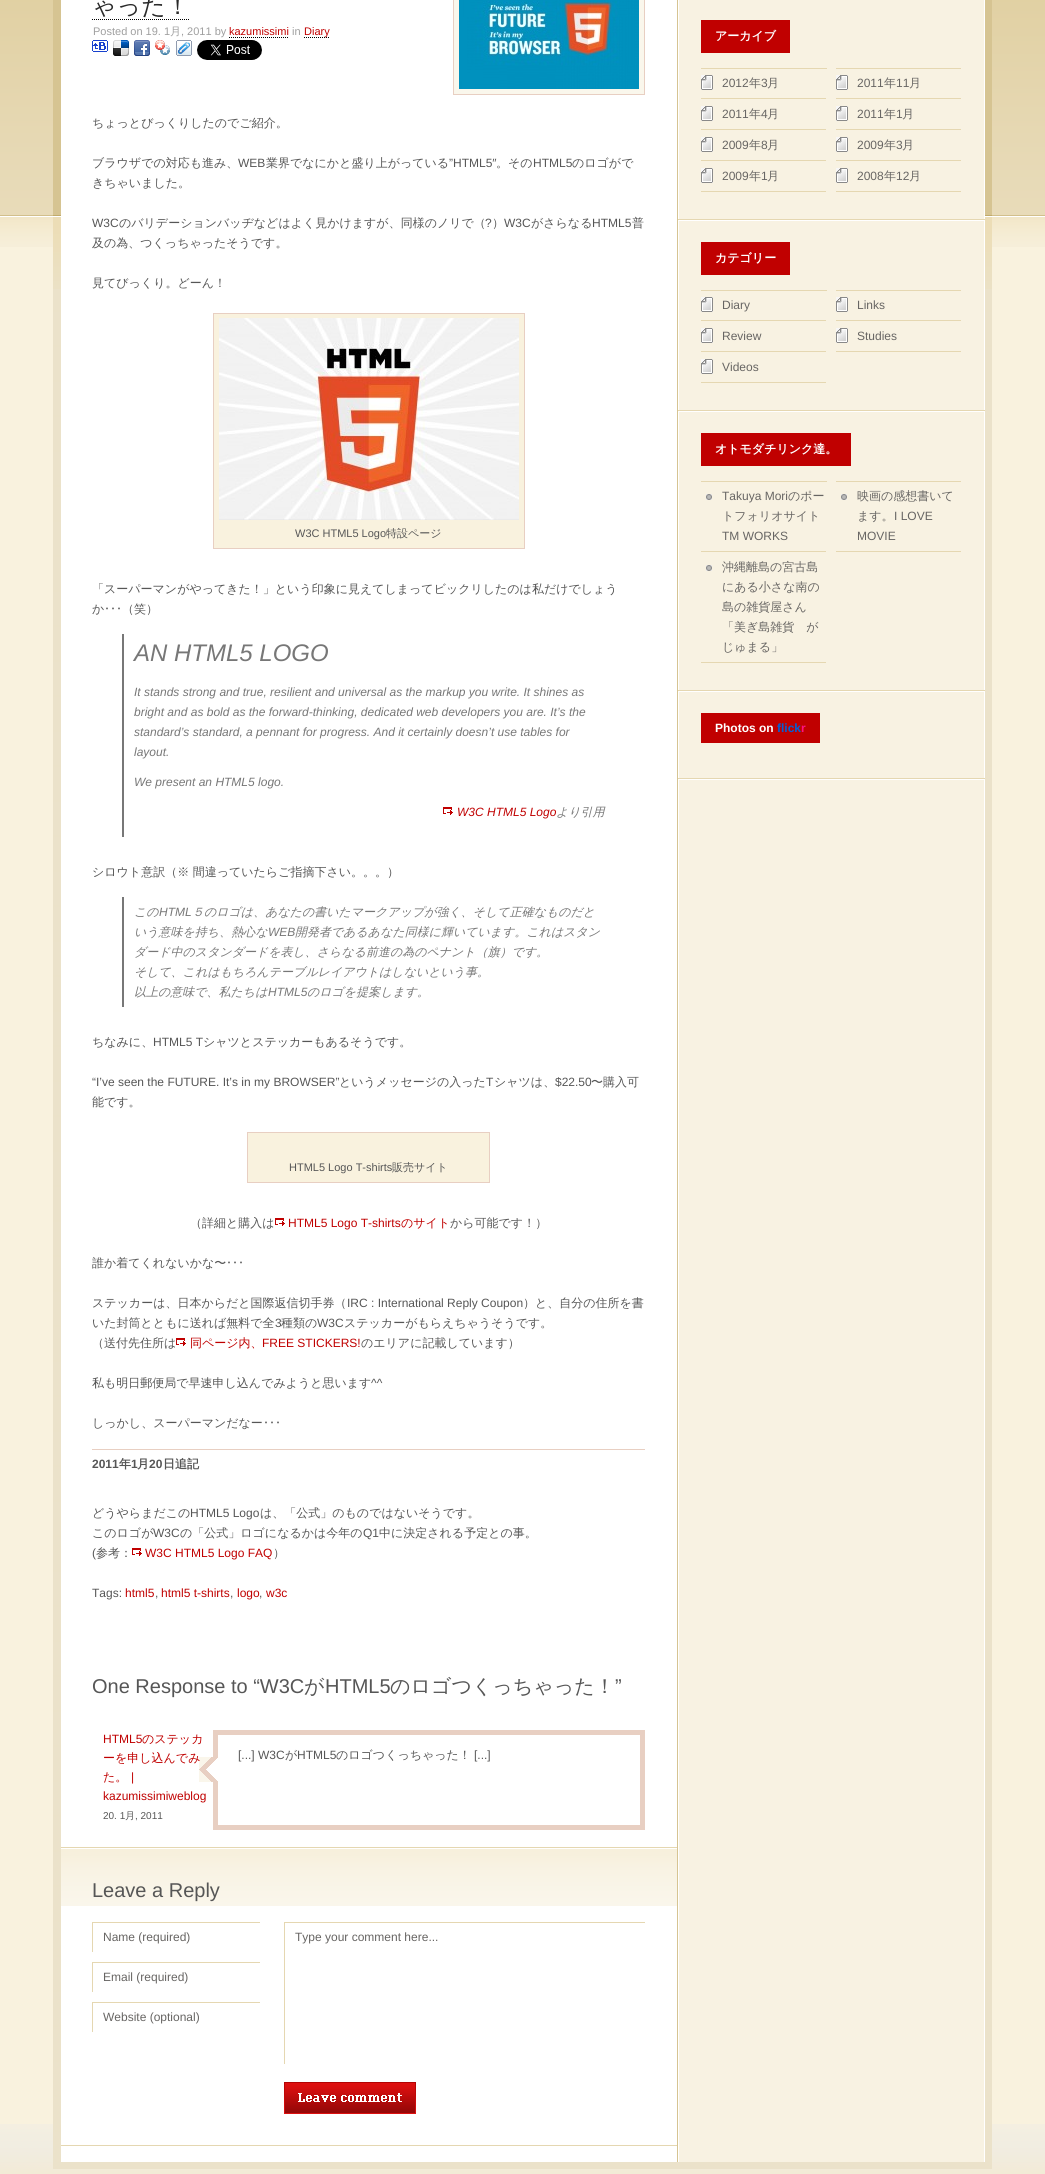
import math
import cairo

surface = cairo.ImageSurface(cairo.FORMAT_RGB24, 1045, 2174)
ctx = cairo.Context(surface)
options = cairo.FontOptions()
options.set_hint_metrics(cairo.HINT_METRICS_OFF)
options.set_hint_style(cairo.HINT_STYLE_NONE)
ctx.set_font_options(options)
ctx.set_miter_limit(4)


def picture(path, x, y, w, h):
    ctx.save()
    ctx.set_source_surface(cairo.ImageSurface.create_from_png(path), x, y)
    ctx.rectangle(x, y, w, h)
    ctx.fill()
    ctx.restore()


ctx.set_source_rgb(0.976, 0.949, 0.871)
ctx.paint()
picture("img1.png", 0, 0, 1045, 247)
picture("img2.png", 0, 2124, 1045, 50)
picture("img3.png", 53, 289, 939, 1873)
picture("img4.png", 53, 2162, 939, 12)
picture("img5.png", 53, 0, 939, 289)
ctx.select_font_face("WenQuanYi Zen Hei Medium")
ctx.set_font_size(24)
ctx.set_source_rgb(0.165, 0.165, 0.165)
ctx.move_to(92, 14)
ctx.show_text("ゃった！")
ctx.new_path()
ctx.move_to(92, 19.5)
ctx.line_to(190, 19.5)
ctx.set_source_rgb(0, 0, 0)
ctx.set_line_width(1)
ctx.set_dash([1, 1])
ctx.stroke()
ctx.set_source_rgb(0.98, 0.965, 0.922)
ctx.rectangle(453.5, -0.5, 191, 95)
ctx.fill_preserve()
ctx.set_source_rgb(0.91, 0.812, 0.761)
ctx.set_dash([])
ctx.stroke()
picture("img6.png", 459, 0, 180, 89)
ctx.select_font_face("Liberation Sans")
ctx.set_font_size(11)
ctx.set_source_rgb(0.624, 0.624, 0.624)
ctx.move_to(93, 35)
ctx.show_text("Posted on 19. 1")
ctx.select_font_face("WenQuanYi Zen Hei Medium")
ctx.move_to(170, 35)
ctx.show_text("月")
ctx.select_font_face("Liberation Sans")
ctx.move_to(181, 35)
ctx.show_text(", 2011 by")
ctx.set_source_rgb(0.753, 0, 0)
ctx.move_to(229, 35)
ctx.show_text("kazumissimi")
ctx.new_path()
ctx.move_to(229, 37.5)
ctx.line_to(289, 37.5)
ctx.set_source_rgb(0, 0, 0)
ctx.set_dash([1, 1])
ctx.stroke()
ctx.set_source_rgb(0.624, 0.624, 0.624)
ctx.move_to(292, 35)
ctx.show_text("in")
ctx.new_path()
ctx.move_to(304, 37.5)
ctx.line_to(330, 37.5)
ctx.set_source_rgb(0, 0, 0)
ctx.stroke()
ctx.set_source_rgb(0.753, 0, 0)
ctx.move_to(304, 35)
ctx.show_text("Diary")
picture("img7.png", 92, 40, 16, 12)
picture("img8.png", 113, 40, 16, 16)
picture("img9.png", 134, 40, 16, 16)
picture("img10.png", 155, 40, 15, 15)
picture("img11.png", 176, 40, 16, 16)
picture("img12.png", 197, 40, 65, 20)
ctx.select_font_face("WenQuanYi Zen Hei Medium")
ctx.set_font_size(12)
ctx.set_source_rgb(0.337, 0.337, 0.337)
ctx.move_to(92, 127)
ctx.show_text("ちょっとびっくりしたのでご紹介。")
ctx.move_to(92, 167)
ctx.show_text("ブラウザでの対応も進み、")
ctx.select_font_face("Liberation Sans")
ctx.move_to(238, 167)
ctx.show_text("WEB")
ctx.select_font_face("WenQuanYi Zen Hei Medium")
ctx.move_to(266, 167)
ctx.show_text("業界でなにかと盛り上がっている")
ctx.select_font_face("Liberation Sans")
ctx.move_to(449, 167)
ctx.show_text("”HTML5″")
ctx.select_font_face("WenQuanYi Zen Hei Medium")
ctx.move_to(496, 167)
ctx.show_text("。その")
ctx.select_font_face("Liberation Sans")
ctx.move_to(533, 167)
ctx.show_text("HTML5")
ctx.select_font_face("WenQuanYi Zen Hei Medium")
ctx.move_to(572, 167)
ctx.show_text("のロゴがで")
ctx.move_to(92, 187)
ctx.show_text("きちゃいました。")
ctx.select_font_face("Liberation Sans")
ctx.move_to(92, 227)
ctx.show_text("W3C")
ctx.select_font_face("WenQuanYi Zen Hei Medium")
ctx.move_to(119, 227)
ctx.show_text("のバリデーションバッヂなどはよく見かけますが、同様のノリで（")
ctx.select_font_face("Liberation Sans")
ctx.move_to(485, 227)
ctx.show_text("?")
ctx.select_font_face("WenQuanYi Zen Hei Medium")
ctx.move_to(492, 227)
ctx.show_text("）")
ctx.select_font_face("Liberation Sans")
ctx.move_to(504, 227)
ctx.show_text("W3C")
ctx.select_font_face("WenQuanYi Zen Hei Medium")
ctx.move_to(531, 227)
ctx.show_text("がさらなる")
ctx.select_font_face("Liberation Sans")
ctx.move_to(592, 227)
ctx.show_text("HTML5")
ctx.select_font_face("WenQuanYi Zen Hei Medium")
ctx.move_to(632, 227)
ctx.show_text("普")
ctx.move_to(92, 247)
ctx.show_text("及の為、つくっちゃったそうです。")
ctx.move_to(92, 287)
ctx.show_text("見てびっくり。どーん！")
ctx.set_source_rgb(0.976, 0.949, 0.871)
ctx.rectangle(213.5, 313.5, 311, 235)
ctx.fill_preserve()
ctx.set_source_rgb(0.91, 0.812, 0.761)
ctx.set_dash([])
ctx.stroke()
picture("img13.png", 219, 318, 300, 202)
ctx.select_font_face("Liberation Sans")
ctx.set_font_size(11)
ctx.set_source_rgb(0.337, 0.337, 0.337)
ctx.move_to(295, 537)
ctx.show_text("W3C HTML5 Logo")
ctx.select_font_face("WenQuanYi Zen Hei Medium")
ctx.move_to(386, 537)
ctx.show_text("特設ページ")
ctx.set_font_size(12)
ctx.move_to(92, 593)
ctx.show_text("「スーパーマンがやってきた！」という印象に見えてしまってビックリしたのは私だけでしょう")
ctx.move_to(92, 613)
ctx.show_text("か")
ctx.select_font_face("IPAGothic")
ctx.move_to(104, 613)
ctx.show_text("･･･")
ctx.select_font_face("WenQuanYi Zen Hei Medium")
ctx.move_to(122, 613)
ctx.show_text("（笑）")
ctx.set_source_rgb(0.467, 0.467, 0.467)
ctx.rectangle(122, 634, 2, 203)
ctx.fill()
ctx.select_font_face("Liberation Sans", cairo.FONT_SLANT_ITALIC)
ctx.set_font_size(24)
ctx.move_to(134, 661)
ctx.show_text("AN HTML5 LOGO")
ctx.set_font_size(12)
ctx.move_to(134, 696)
ctx.show_text("It stands strong and true, resilient and universal as the markup you write. It shines as")
ctx.move_to(134, 716)
ctx.show_text("bright and as bold as the forward-thinking, dedicated web developers you are. It’s the")
ctx.move_to(134, 736)
ctx.show_text("standard’s standard, a pennant for progress. And it certainly doesn’t use tables for")
ctx.move_to(134, 756)
ctx.show_text("layout.")
ctx.move_to(134, 786)
ctx.show_text("We present an HTML5 logo.")
picture("img14.png", 443, 807, 10, 8)
ctx.set_source_rgb(0.753, 0, 0)
ctx.move_to(457, 816)
ctx.show_text("W3C HTML5 Logo")
ctx.select_font_face("WenQuanYi Zen Hei Medium", cairo.FONT_SLANT_ITALIC)
ctx.set_source_rgb(0.467, 0.467, 0.467)
ctx.move_to(556, 816)
ctx.show_text("より引用")
ctx.select_font_face("WenQuanYi Zen Hei Medium")
ctx.set_source_rgb(0.337, 0.337, 0.337)
ctx.move_to(92, 876)
ctx.show_text("シロウト意訳（※ 間違っていたらご指摘下さい。。。）")
ctx.set_source_rgb(0.467, 0.467, 0.467)
ctx.rectangle(122, 897, 2, 110)
ctx.fill()
ctx.select_font_face("WenQuanYi Zen Hei Medium", cairo.FONT_SLANT_ITALIC)
ctx.move_to(134, 916)
ctx.show_text("この")
ctx.select_font_face("Liberation Sans", cairo.FONT_SLANT_ITALIC)
ctx.move_to(159, 916)
ctx.show_text("HTML")
ctx.select_font_face("WenQuanYi Zen Hei Medium", cairo.FONT_SLANT_ITALIC)
ctx.move_to(192, 916)
ctx.show_text("５のロゴは、あなたの書いたマークアップが強く、そして正確なものだと")
ctx.move_to(134, 936)
ctx.show_text("いう意味を持ち、熱心な")
ctx.select_font_face("Liberation Sans", cairo.FONT_SLANT_ITALIC)
ctx.move_to(268, 936)
ctx.show_text("WEB")
ctx.select_font_face("WenQuanYi Zen Hei Medium", cairo.FONT_SLANT_ITALIC)
ctx.move_to(295, 936)
ctx.show_text("開発者であるあなた同様に輝いています。これはスタン")
ctx.move_to(134, 956)
ctx.show_text("ダード中のスタンダードを表し、さらなる前進の為のペナント（旗）です。")
ctx.move_to(134, 976)
ctx.show_text("そして、これはもちろんテーブルレイアウトはしないという事。")
ctx.move_to(134, 996)
ctx.show_text("以上の意味で、私たちは")
ctx.select_font_face("Liberation Sans", cairo.FONT_SLANT_ITALIC)
ctx.move_to(268, 996)
ctx.show_text("HTML5")
ctx.select_font_face("WenQuanYi Zen Hei Medium", cairo.FONT_SLANT_ITALIC)
ctx.move_to(307, 996)
ctx.show_text("のロゴを提案します。")
ctx.select_font_face("WenQuanYi Zen Hei Medium")
ctx.set_source_rgb(0.337, 0.337, 0.337)
ctx.move_to(92, 1046)
ctx.show_text("ちなみに、")
ctx.select_font_face("Liberation Sans")
ctx.move_to(153, 1046)
ctx.show_text("HTML5 T")
ctx.select_font_face("WenQuanYi Zen Hei Medium")
ctx.move_to(203, 1046)
ctx.show_text("シャツとステッカーもあるそうです。")
ctx.select_font_face("Liberation Sans")
ctx.move_to(92, 1086)
ctx.show_text("“I’ve seen the FUTURE. It’s in my BROWSER”")
ctx.select_font_face("WenQuanYi Zen Hei Medium")
ctx.move_to(339, 1086)
ctx.show_text("というメッセージの入った")
ctx.select_font_face("Liberation Sans")
ctx.move_to(486, 1086)
ctx.show_text("T")
ctx.select_font_face("WenQuanYi Zen Hei Medium")
ctx.move_to(494, 1086)
ctx.show_text("シャツは、")
ctx.select_font_face("Liberation Sans")
ctx.move_to(555, 1086)
ctx.show_text("$22.50")
ctx.select_font_face("WenQuanYi Zen Hei Medium")
ctx.move_to(591, 1086)
ctx.show_text("〜購入可")
ctx.move_to(92, 1106)
ctx.show_text("能です。")
ctx.set_source_rgb(0.976, 0.949, 0.871)
ctx.rectangle(247.5, 1132.5, 242, 50)
ctx.fill_preserve()
ctx.set_source_rgb(0.91, 0.812, 0.761)
ctx.stroke()
ctx.select_font_face("Liberation Sans")
ctx.set_font_size(11)
ctx.set_source_rgb(0.337, 0.337, 0.337)
ctx.move_to(289, 1171)
ctx.show_text("HTML5 Logo T-shirts")
ctx.select_font_face("WenQuanYi Zen Hei Medium")
ctx.move_to(392, 1171)
ctx.show_text("販売サイト")
ctx.set_font_size(12)
ctx.move_to(190, 1227)
ctx.show_text("（詳細と購入は")
picture("img14.png", 275, 1218, 10, 8)
ctx.select_font_face("Liberation Sans")
ctx.set_source_rgb(0.753, 0, 0)
ctx.move_to(288, 1227)
ctx.show_text("HTML5 Logo T-shirts")
ctx.select_font_face("WenQuanYi Zen Hei Medium")
ctx.move_to(401, 1227)
ctx.show_text("のサイト")
ctx.set_source_rgb(0.337, 0.337, 0.337)
ctx.move_to(450, 1227)
ctx.show_text("から可能です！）")
ctx.move_to(92, 1267)
ctx.show_text("誰か着てくれないかな〜")
ctx.select_font_face("IPAGothic")
ctx.move_to(226, 1267)
ctx.show_text("･･･")
ctx.select_font_face("WenQuanYi Zen Hei Medium")
ctx.move_to(92, 1307)
ctx.show_text("ステッカーは、日本からだと国際返信切手券（")
ctx.select_font_face("Liberation Sans")
ctx.move_to(347, 1307)
ctx.show_text("IRC : International Reply Coupon")
ctx.select_font_face("WenQuanYi Zen Hei Medium")
ctx.move_to(523, 1307)
ctx.show_text("）と、自分の住所を書")
ctx.move_to(92, 1327)
ctx.show_text("いた封筒とともに送れば無料で全")
ctx.select_font_face("Liberation Sans")
ctx.move_to(275, 1327)
ctx.show_text("3")
ctx.select_font_face("WenQuanYi Zen Hei Medium")
ctx.move_to(281, 1327)
ctx.show_text("種類の")
ctx.select_font_face("Liberation Sans")
ctx.move_to(317, 1327)
ctx.show_text("W3C")
ctx.select_font_face("WenQuanYi Zen Hei Medium")
ctx.move_to(344, 1327)
ctx.show_text("ステッカーがもらえちゃうそうです。")
ctx.move_to(92, 1347)
ctx.show_text("（送付先住所は")
picture("img14.png", 176, 1338, 10, 8)
ctx.set_source_rgb(0.753, 0, 0)
ctx.move_to(190, 1347)
ctx.show_text("同ページ内、")
ctx.select_font_face("Liberation Sans")
ctx.move_to(262, 1347)
ctx.show_text("FREE STICKERS!")
ctx.select_font_face("WenQuanYi Zen Hei Medium")
ctx.set_source_rgb(0.337, 0.337, 0.337)
ctx.move_to(361, 1347)
ctx.show_text("のエリアに記載しています）")
ctx.move_to(92, 1387)
ctx.show_text("私も明日郵便局で早速申し込んでみようと思います")
ctx.select_font_face("Liberation Sans")
ctx.move_to(371, 1387)
ctx.show_text("^^")
ctx.select_font_face("WenQuanYi Zen Hei Medium")
ctx.move_to(92, 1427)
ctx.show_text("しっかし、スーパーマンだなー")
ctx.select_font_face("IPAGothic")
ctx.move_to(263, 1427)
ctx.show_text("･･･")
ctx.set_source_rgb(0.91, 0.812, 0.761)
ctx.rectangle(92, 1449, 553, 1)
ctx.fill()
ctx.select_font_face("Liberation Sans", cairo.FONT_SLANT_NORMAL, cairo.FONT_WEIGHT_BOLD)
ctx.set_source_rgb(0.337, 0.337, 0.337)
ctx.move_to(92, 1468)
ctx.show_text("2011")
ctx.select_font_face("WenQuanYi Zen Hei", cairo.FONT_SLANT_NORMAL, cairo.FONT_WEIGHT_BOLD)
ctx.move_to(119, 1468)
ctx.show_text("年")
ctx.select_font_face("Liberation Sans", cairo.FONT_SLANT_NORMAL, cairo.FONT_WEIGHT_BOLD)
ctx.move_to(131, 1468)
ctx.show_text("1")
ctx.select_font_face("WenQuanYi Zen Hei", cairo.FONT_SLANT_NORMAL, cairo.FONT_WEIGHT_BOLD)
ctx.move_to(137, 1468)
ctx.show_text("月")
ctx.select_font_face("Liberation Sans", cairo.FONT_SLANT_NORMAL, cairo.FONT_WEIGHT_BOLD)
ctx.move_to(149, 1468)
ctx.show_text("20")
ctx.select_font_face("WenQuanYi Zen Hei", cairo.FONT_SLANT_NORMAL, cairo.FONT_WEIGHT_BOLD)
ctx.move_to(163, 1468)
ctx.show_text("日追記")
ctx.select_font_face("WenQuanYi Zen Hei Medium")
ctx.move_to(92, 1517)
ctx.show_text("どうやらまだこの")
ctx.select_font_face("Liberation Sans")
ctx.move_to(190, 1517)
ctx.show_text("HTML5 Logo")
ctx.select_font_face("WenQuanYi Zen Hei Medium")
ctx.move_to(260, 1517)
ctx.show_text("は、「公式」のものではないそうです。")
ctx.move_to(92, 1537)
ctx.show_text("このロゴが")
ctx.select_font_face("Liberation Sans")
ctx.move_to(153, 1537)
ctx.show_text("W3C")
ctx.select_font_face("WenQuanYi Zen Hei Medium")
ctx.move_to(180, 1537)
ctx.show_text("の「公式」ロゴになるかは今年の")
ctx.select_font_face("Liberation Sans")
ctx.move_to(363, 1537)
ctx.show_text("Q1")
ctx.select_font_face("WenQuanYi Zen Hei Medium")
ctx.move_to(379, 1537)
ctx.show_text("中に決定される予定との事。")
ctx.select_font_face("Liberation Sans")
ctx.move_to(92, 1557)
ctx.show_text("(")
ctx.select_font_face("WenQuanYi Zen Hei Medium")
ctx.move_to(96, 1557)
ctx.show_text("参考：")
picture("img14.png", 132, 1548, 10, 8)
ctx.select_font_face("Liberation Sans")
ctx.set_source_rgb(0.753, 0, 0)
ctx.move_to(145, 1557)
ctx.show_text("W3C HTML5 Logo FAQ")
ctx.select_font_face("WenQuanYi Zen Hei Medium")
ctx.set_source_rgb(0.337, 0.337, 0.337)
ctx.move_to(273, 1557)
ctx.show_text("）")
ctx.select_font_face("Liberation Sans")
ctx.move_to(92, 1597)
ctx.show_text("Tags:")
ctx.set_source_rgb(0.753, 0, 0)
ctx.move_to(125, 1597)
ctx.show_text("html5")
ctx.set_source_rgb(0.337, 0.337, 0.337)
ctx.move_to(155, 1597)
ctx.show_text(",")
ctx.set_source_rgb(0.753, 0, 0)
ctx.move_to(161, 1597)
ctx.show_text("html5 t-shirts")
ctx.set_source_rgb(0.337, 0.337, 0.337)
ctx.move_to(230, 1597)
ctx.show_text(",")
ctx.set_source_rgb(0.753, 0, 0)
ctx.move_to(237, 1597)
ctx.show_text("logo")
ctx.set_source_rgb(0.337, 0.337, 0.337)
ctx.move_to(259, 1597)
ctx.show_text(",")
ctx.set_source_rgb(0.753, 0, 0)
ctx.move_to(266, 1597)
ctx.show_text("w3c")
picture("img15.png", 61, 1847, 616, 59)
ctx.set_font_size(20)
ctx.set_source_rgb(0.337, 0.337, 0.337)
ctx.move_to(92, 1693)
ctx.show_text("One Response to “W3C")
ctx.select_font_face("WenQuanYi Zen Hei Medium")
ctx.move_to(304, 1693)
ctx.show_text("が")
ctx.select_font_face("Liberation Sans")
ctx.move_to(325, 1693)
ctx.show_text("HTML5")
ctx.select_font_face("WenQuanYi Zen Hei Medium")
ctx.move_to(390, 1693)
ctx.show_text("のロゴつくっちゃった！")
ctx.select_font_face("Liberation Sans")
ctx.move_to(615, 1693)
ctx.show_text("”")
ctx.rectangle(215.5, 1732.5, 427, 95)
ctx.set_source_rgb(0.91, 0.812, 0.761)
ctx.set_line_width(5)
ctx.stroke()
picture("img16.png", 199, 1757, 19, 25)
ctx.set_font_size(12)
ctx.set_source_rgb(0.753, 0, 0)
ctx.move_to(103, 1743)
ctx.show_text("HTML5")
ctx.select_font_face("WenQuanYi Zen Hei Medium")
ctx.move_to(142, 1743)
ctx.show_text("のステッカ")
ctx.move_to(103, 1762)
ctx.show_text("ーを申し込んでみ")
ctx.move_to(103, 1781)
ctx.show_text("た。")
ctx.select_font_face("Liberation Sans")
ctx.move_to(131, 1781)
ctx.show_text("|")
ctx.move_to(103, 1800)
ctx.show_text("kazumissimiweblog")
ctx.set_font_size(10)
ctx.set_source_rgb(0.337, 0.337, 0.337)
ctx.move_to(103, 1819)
ctx.show_text("20. 1")
ctx.select_font_face("WenQuanYi Zen Hei Medium")
ctx.move_to(125, 1819)
ctx.show_text("月")
ctx.select_font_face("Liberation Sans")
ctx.move_to(135, 1819)
ctx.show_text(", 2011")
ctx.set_font_size(12)
ctx.move_to(238, 1759)
ctx.show_text("[...] W3C")
ctx.select_font_face("WenQuanYi Zen Hei Medium")
ctx.move_to(285, 1759)
ctx.show_text("が")
ctx.select_font_face("Liberation Sans")
ctx.move_to(297, 1759)
ctx.show_text("HTML5")
ctx.select_font_face("WenQuanYi Zen Hei Medium")
ctx.move_to(336, 1759)
ctx.show_text("のロゴつくっちゃった！")
ctx.select_font_face("Liberation Sans")
ctx.move_to(474, 1759)
ctx.show_text("[...]")
ctx.set_source_rgb(0.898, 0.843, 0.694)
ctx.rectangle(61, 2145, 616, 1)
ctx.fill()
ctx.set_font_size(20)
ctx.set_source_rgb(0.337, 0.337, 0.337)
ctx.move_to(92, 1897)
ctx.show_text("Leave a Reply")
ctx.set_source_rgb(0.898, 0.843, 0.694)
ctx.rectangle(92, 1922, 169, 1)
ctx.fill()
ctx.set_source_rgb(1, 1, 1)
ctx.rectangle(260, 1922, 1, 1)
ctx.fill()
ctx.set_source_rgb(0.898, 0.843, 0.694)
ctx.rectangle(92, 1922, 1, 30)
ctx.fill()
ctx.set_font_size(12)
ctx.set_source_rgb(0.404, 0.396, 0.388)
ctx.move_to(103, 1941)
ctx.show_text("Name (required)")
ctx.set_source_rgb(0.898, 0.843, 0.694)
ctx.rectangle(92, 1962, 169, 1)
ctx.fill()
ctx.set_source_rgb(1, 1, 1)
ctx.rectangle(260, 1962, 1, 1)
ctx.fill()
ctx.set_source_rgb(0.898, 0.843, 0.694)
ctx.rectangle(92, 1962, 1, 30)
ctx.fill()
ctx.set_source_rgb(0.404, 0.396, 0.388)
ctx.move_to(103, 1981)
ctx.show_text("Email (required)")
ctx.set_source_rgb(0.898, 0.843, 0.694)
ctx.rectangle(92, 2002, 169, 1)
ctx.fill()
ctx.set_source_rgb(1, 1, 1)
ctx.rectangle(260, 2002, 1, 1)
ctx.fill()
ctx.set_source_rgb(0.898, 0.843, 0.694)
ctx.rectangle(92, 2002, 1, 30)
ctx.fill()
ctx.set_source_rgb(0.404, 0.396, 0.388)
ctx.move_to(103, 2021)
ctx.show_text("Website (optional)")
ctx.set_source_rgb(0.898, 0.843, 0.694)
ctx.rectangle(284, 1922, 362, 1)
ctx.fill()
ctx.set_source_rgb(1, 1, 1)
ctx.rectangle(645, 1922, 1, 1)
ctx.fill()
ctx.set_source_rgb(0.898, 0.843, 0.694)
ctx.rectangle(284, 1922, 1, 142)
ctx.fill()
ctx.set_source_rgb(0.404, 0.396, 0.388)
ctx.move_to(295, 1941)
ctx.show_text("Type your comment here...")
picture("img17.png", 284, 2082, 132, 32)
picture("img18.png", 678, 219, 307, 2)
ctx.set_source_rgb(0.753, 0, 0)
ctx.rectangle(701, 20, 89, 33)
ctx.fill()
ctx.select_font_face("WenQuanYi Zen Hei", cairo.FONT_SLANT_NORMAL, cairo.FONT_WEIGHT_BOLD)
ctx.set_source_rgb(1, 1, 1)
ctx.move_to(715, 40)
ctx.show_text("アーカイブ")
picture("img19.png", 701, 68, 260, 1)
picture("img20.png", 701, 75, 12, 15)
ctx.set_source_rgb(0.898, 0.843, 0.694)
ctx.rectangle(701, 98, 125, 1)
ctx.fill()
ctx.select_font_face("Liberation Sans")
ctx.set_source_rgb(0.404, 0.396, 0.388)
ctx.move_to(722, 87)
ctx.show_text("2012")
ctx.select_font_face("WenQuanYi Zen Hei Medium")
ctx.move_to(749, 87)
ctx.show_text("年")
ctx.select_font_face("Liberation Sans")
ctx.move_to(761, 87)
ctx.show_text("3")
ctx.select_font_face("WenQuanYi Zen Hei Medium")
ctx.move_to(767, 87)
ctx.show_text("月")
picture("img20.png", 836, 75, 12, 15)
ctx.set_source_rgb(0.898, 0.843, 0.694)
ctx.rectangle(836, 98, 125, 1)
ctx.fill()
ctx.select_font_face("Liberation Sans")
ctx.set_source_rgb(0.404, 0.396, 0.388)
ctx.move_to(857, 87)
ctx.show_text("2011")
ctx.select_font_face("WenQuanYi Zen Hei Medium")
ctx.move_to(884, 87)
ctx.show_text("年")
ctx.select_font_face("Liberation Sans")
ctx.move_to(896, 87)
ctx.show_text("11")
ctx.select_font_face("WenQuanYi Zen Hei Medium")
ctx.move_to(909, 87)
ctx.show_text("月")
picture("img20.png", 701, 106, 12, 15)
ctx.set_source_rgb(0.898, 0.843, 0.694)
ctx.rectangle(701, 129, 125, 1)
ctx.fill()
ctx.select_font_face("Liberation Sans")
ctx.set_source_rgb(0.404, 0.396, 0.388)
ctx.move_to(722, 118)
ctx.show_text("2011")
ctx.select_font_face("WenQuanYi Zen Hei Medium")
ctx.move_to(749, 118)
ctx.show_text("年")
ctx.select_font_face("Liberation Sans")
ctx.move_to(761, 118)
ctx.show_text("4")
ctx.select_font_face("WenQuanYi Zen Hei Medium")
ctx.move_to(767, 118)
ctx.show_text("月")
picture("img20.png", 836, 106, 12, 15)
ctx.set_source_rgb(0.898, 0.843, 0.694)
ctx.rectangle(836, 129, 125, 1)
ctx.fill()
ctx.select_font_face("Liberation Sans")
ctx.set_source_rgb(0.404, 0.396, 0.388)
ctx.move_to(857, 118)
ctx.show_text("2011")
ctx.select_font_face("WenQuanYi Zen Hei Medium")
ctx.move_to(884, 118)
ctx.show_text("年")
ctx.select_font_face("Liberation Sans")
ctx.move_to(896, 118)
ctx.show_text("1")
ctx.select_font_face("WenQuanYi Zen Hei Medium")
ctx.move_to(902, 118)
ctx.show_text("月")
picture("img20.png", 701, 137, 12, 15)
ctx.set_source_rgb(0.898, 0.843, 0.694)
ctx.rectangle(701, 160, 125, 1)
ctx.fill()
ctx.select_font_face("Liberation Sans")
ctx.set_source_rgb(0.404, 0.396, 0.388)
ctx.move_to(722, 149)
ctx.show_text("2009")
ctx.select_font_face("WenQuanYi Zen Hei Medium")
ctx.move_to(749, 149)
ctx.show_text("年")
ctx.select_font_face("Liberation Sans")
ctx.move_to(761, 149)
ctx.show_text("8")
ctx.select_font_face("WenQuanYi Zen Hei Medium")
ctx.move_to(767, 149)
ctx.show_text("月")
picture("img20.png", 836, 137, 12, 15)
ctx.set_source_rgb(0.898, 0.843, 0.694)
ctx.rectangle(836, 160, 125, 1)
ctx.fill()
ctx.select_font_face("Liberation Sans")
ctx.set_source_rgb(0.404, 0.396, 0.388)
ctx.move_to(857, 149)
ctx.show_text("2009")
ctx.select_font_face("WenQuanYi Zen Hei Medium")
ctx.move_to(884, 149)
ctx.show_text("年")
ctx.select_font_face("Liberation Sans")
ctx.move_to(896, 149)
ctx.show_text("3")
ctx.select_font_face("WenQuanYi Zen Hei Medium")
ctx.move_to(902, 149)
ctx.show_text("月")
picture("img20.png", 701, 168, 12, 15)
ctx.set_source_rgb(0.898, 0.843, 0.694)
ctx.rectangle(701, 191, 125, 1)
ctx.fill()
ctx.select_font_face("Liberation Sans")
ctx.set_source_rgb(0.404, 0.396, 0.388)
ctx.move_to(722, 180)
ctx.show_text("2009")
ctx.select_font_face("WenQuanYi Zen Hei Medium")
ctx.move_to(749, 180)
ctx.show_text("年")
ctx.select_font_face("Liberation Sans")
ctx.move_to(761, 180)
ctx.show_text("1")
ctx.select_font_face("WenQuanYi Zen Hei Medium")
ctx.move_to(767, 180)
ctx.show_text("月")
picture("img20.png", 836, 168, 12, 15)
ctx.set_source_rgb(0.898, 0.843, 0.694)
ctx.rectangle(836, 191, 125, 1)
ctx.fill()
ctx.select_font_face("Liberation Sans")
ctx.set_source_rgb(0.404, 0.396, 0.388)
ctx.move_to(857, 180)
ctx.show_text("2008")
ctx.select_font_face("WenQuanYi Zen Hei Medium")
ctx.move_to(884, 180)
ctx.show_text("年")
ctx.select_font_face("Liberation Sans")
ctx.move_to(896, 180)
ctx.show_text("12")
ctx.select_font_face("WenQuanYi Zen Hei Medium")
ctx.move_to(909, 180)
ctx.show_text("月")
picture("img18.png", 678, 410, 307, 2)
ctx.set_source_rgb(0.753, 0, 0)
ctx.rectangle(701, 242, 89, 33)
ctx.fill()
ctx.select_font_face("WenQuanYi Zen Hei", cairo.FONT_SLANT_NORMAL, cairo.FONT_WEIGHT_BOLD)
ctx.set_source_rgb(1, 1, 1)
ctx.move_to(715, 262)
ctx.show_text("カテゴリー")
picture("img19.png", 701, 290, 260, 1)
picture("img20.png", 701, 297, 12, 15)
ctx.set_source_rgb(0.898, 0.843, 0.694)
ctx.rectangle(701, 320, 125, 1)
ctx.fill()
ctx.select_font_face("Liberation Sans")
ctx.set_source_rgb(0.404, 0.396, 0.388)
ctx.move_to(722, 309)
ctx.show_text("Diary")
picture("img20.png", 836, 297, 12, 15)
ctx.set_source_rgb(0.898, 0.843, 0.694)
ctx.rectangle(836, 320, 125, 1)
ctx.fill()
ctx.set_source_rgb(0.404, 0.396, 0.388)
ctx.move_to(857, 309)
ctx.show_text("Links")
picture("img20.png", 701, 328, 12, 15)
ctx.set_source_rgb(0.898, 0.843, 0.694)
ctx.rectangle(701, 351, 125, 1)
ctx.fill()
ctx.set_source_rgb(0.404, 0.396, 0.388)
ctx.move_to(722, 340)
ctx.show_text("Review")
picture("img20.png", 836, 328, 12, 15)
ctx.set_source_rgb(0.898, 0.843, 0.694)
ctx.rectangle(836, 351, 125, 1)
ctx.fill()
ctx.set_source_rgb(0.404, 0.396, 0.388)
ctx.move_to(857, 340)
ctx.show_text("Studies")
picture("img20.png", 701, 359, 12, 15)
ctx.set_source_rgb(0.898, 0.843, 0.694)
ctx.rectangle(701, 382, 125, 1)
ctx.fill()
ctx.set_source_rgb(0.404, 0.396, 0.388)
ctx.move_to(722, 371)
ctx.show_text("Videos")
picture("img18.png", 678, 690, 307, 2)
ctx.set_source_rgb(0.753, 0, 0)
ctx.rectangle(701, 433, 150, 33)
ctx.fill()
ctx.select_font_face("WenQuanYi Zen Hei", cairo.FONT_SLANT_NORMAL, cairo.FONT_WEIGHT_BOLD)
ctx.set_source_rgb(1, 1, 1)
ctx.move_to(715, 453)
ctx.show_text("オトモダチリンク達。")
picture("img19.png", 701, 481, 260, 1)
picture("img21.png", 706, 494, 6, 6)
ctx.set_source_rgb(0.898, 0.843, 0.694)
ctx.rectangle(701, 551, 125, 1)
ctx.fill()
ctx.select_font_face("Liberation Sans")
ctx.set_source_rgb(0.404, 0.396, 0.388)
ctx.move_to(722, 500)
ctx.show_text("Takuya Mori")
ctx.select_font_face("WenQuanYi Zen Hei Medium")
ctx.move_to(788, 500)
ctx.show_text("のポー")
ctx.move_to(722, 520)
ctx.show_text("トフォリオサイト")
ctx.select_font_face("Liberation Sans")
ctx.move_to(722, 540)
ctx.show_text("TM WORKS")
picture("img21.png", 841, 494, 6, 6)
ctx.set_source_rgb(0.898, 0.843, 0.694)
ctx.rectangle(836, 551, 125, 1)
ctx.fill()
ctx.select_font_face("WenQuanYi Zen Hei Medium")
ctx.set_source_rgb(0.404, 0.396, 0.388)
ctx.move_to(857, 500)
ctx.show_text("映画の感想書いて")
ctx.move_to(857, 520)
ctx.show_text("ます。")
ctx.select_font_face("Liberation Sans")
ctx.move_to(894, 520)
ctx.show_text("I LOVE")
ctx.move_to(857, 540)
ctx.show_text("MOVIE")
picture("img21.png", 706, 565, 6, 6)
ctx.set_source_rgb(0.898, 0.843, 0.694)
ctx.rectangle(701, 662, 125, 1)
ctx.fill()
ctx.select_font_face("WenQuanYi Zen Hei Medium")
ctx.set_source_rgb(0.404, 0.396, 0.388)
ctx.move_to(722, 571)
ctx.show_text("沖縄離島の宮古島")
ctx.move_to(722, 591)
ctx.show_text("にある小さな南の")
ctx.move_to(722, 611)
ctx.show_text("島の雑貨屋さん")
ctx.move_to(722, 631)
ctx.show_text("「美ぎ島雑貨　が")
ctx.move_to(722, 651)
ctx.show_text("じゅまる」")
picture("img18.png", 678, 778, 307, 2)
ctx.set_source_rgb(0.753, 0, 0)
ctx.rectangle(701, 713, 119, 30)
ctx.fill()
ctx.select_font_face("Liberation Sans", cairo.FONT_SLANT_NORMAL, cairo.FONT_WEIGHT_BOLD)
ctx.set_source_rgb(1, 1, 1)
ctx.move_to(715, 732)
ctx.show_text("Photos on")
ctx.set_source_rgb(0, 0.38, 0.847)
ctx.move_to(777, 732)
ctx.show_text("flick")
ctx.set_source_rgb(1, 0.067, 0.514)
ctx.move_to(801, 732)
ctx.show_text("r")
surface.write_to_png("page.png")
